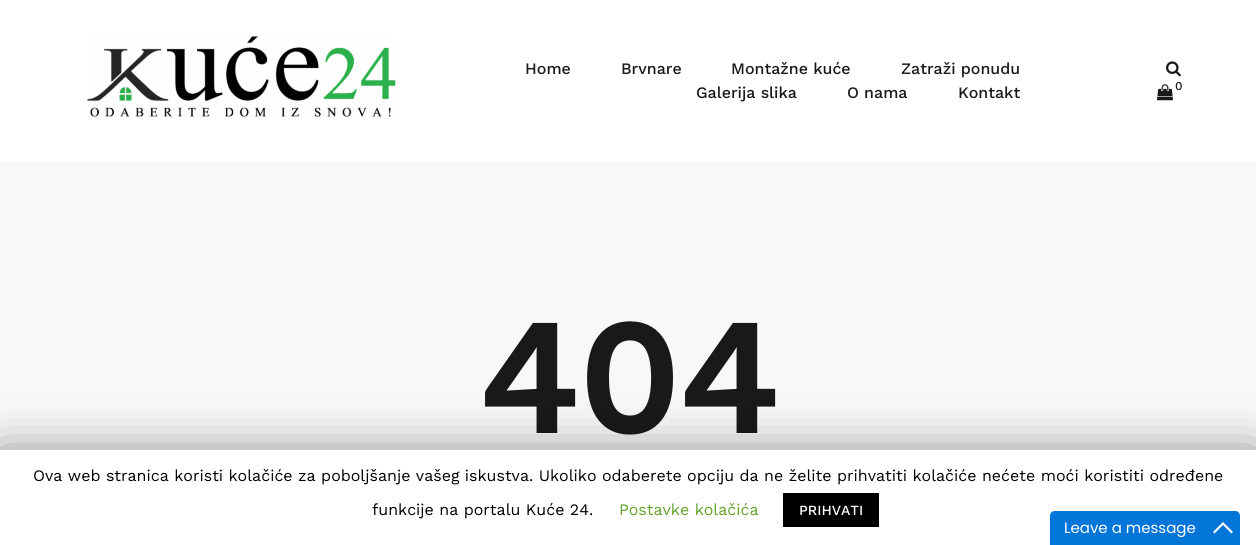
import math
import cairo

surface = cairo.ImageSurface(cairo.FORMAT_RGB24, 1256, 545)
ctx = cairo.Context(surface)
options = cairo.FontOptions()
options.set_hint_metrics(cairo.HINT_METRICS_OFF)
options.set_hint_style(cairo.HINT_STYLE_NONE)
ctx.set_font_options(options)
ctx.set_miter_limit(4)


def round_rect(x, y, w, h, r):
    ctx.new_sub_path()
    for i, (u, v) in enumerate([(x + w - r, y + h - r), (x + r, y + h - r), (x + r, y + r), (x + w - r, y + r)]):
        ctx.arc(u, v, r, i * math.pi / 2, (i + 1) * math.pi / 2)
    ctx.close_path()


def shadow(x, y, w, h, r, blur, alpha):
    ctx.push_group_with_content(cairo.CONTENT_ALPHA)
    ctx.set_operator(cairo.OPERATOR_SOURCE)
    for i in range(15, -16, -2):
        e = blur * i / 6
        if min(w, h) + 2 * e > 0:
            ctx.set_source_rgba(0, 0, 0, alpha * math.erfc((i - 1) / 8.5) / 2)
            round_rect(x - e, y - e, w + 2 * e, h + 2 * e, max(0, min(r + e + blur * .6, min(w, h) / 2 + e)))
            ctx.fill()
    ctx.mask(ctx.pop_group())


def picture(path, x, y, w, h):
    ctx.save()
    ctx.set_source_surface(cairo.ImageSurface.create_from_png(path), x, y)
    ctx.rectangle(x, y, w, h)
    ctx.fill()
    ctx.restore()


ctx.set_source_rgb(1, 1, 1)
ctx.paint()
picture("img1.png", 87, 36, 309, 82)
ctx.select_font_face("Work Sans Medium")
ctx.set_font_size(16)
ctx.set_source_rgb(0.098, 0.098, 0.098)
ctx.move_to(525, 74)
ctx.show_text("Home")
ctx.move_to(621, 74)
ctx.show_text("Brvnare")
ctx.move_to(731, 74)
ctx.show_text("Montažne kuće")
ctx.move_to(901, 74)
ctx.show_text("Zatraži ponudu")
ctx.move_to(696, 98)
ctx.show_text("Galerija slika")
ctx.move_to(847, 98)
ctx.show_text("O nama")
ctx.move_to(958, 98)
ctx.show_text("Kontakt")
picture("img2.png", 1166, 61, 15, 16)
picture("img3.png", 1157, 84, 16, 17)
ctx.set_font_size(12)
ctx.move_to(1175, 90)
ctx.show_text("0")
ctx.set_source_rgb(0.969, 0.969, 0.969)
ctx.rectangle(0, 162, 1256, 288)
ctx.fill()
ctx.select_font_face("Work Sans", cairo.FONT_SLANT_NORMAL, cairo.FONT_WEIGHT_BOLD)
ctx.set_font_size(160)
ctx.set_source_rgb(0.098, 0.098, 0.098)
ctx.move_to(478, 433)
ctx.show_text("404")
ctx.set_source_rgb(0, 0, 0)
shadow(0, 455, 1256, 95, 0, 25, 0.5)
ctx.set_source_rgb(1, 1, 1)
ctx.rectangle(0, 450, 1256, 95)
ctx.fill()
ctx.select_font_face("Work Sans")
ctx.set_font_size(16)
ctx.set_source_rgb(0, 0, 0)
ctx.move_to(33, 481)
ctx.show_text("Ova web stranica koristi kolačiće za poboljšanje vašeg iskustva. Ukoliko odaberete opciju da ne želite prihvatiti kolačiće nećete moći koristiti određene")
ctx.move_to(372, 515)
ctx.show_text("funkcije na portalu Kuće 24.")
ctx.set_source_rgb(0.384, 0.639, 0.161)
ctx.move_to(619, 515)
ctx.show_text("Postavke kolačića")
ctx.set_source_rgb(0, 0, 0)
ctx.rectangle(783, 493, 96, 34)
ctx.fill()
ctx.select_font_face("Work Sans Medium")
ctx.set_font_size(14)
ctx.set_source_rgb(1, 1, 1)
ctx.move_to(799, 515)
ctx.show_text("PRIHVATI")
ctx.set_source_rgb(0.008, 0.459, 0.847)
ctx.new_path()
ctx.move_to(1055, 511)
ctx.line_to(1235, 511)
ctx.curve_to(1238, 511, 1240, 513, 1240, 516)
ctx.line_to(1240, 545)
ctx.line_to(1050, 545)
ctx.line_to(1050, 516)
ctx.curve_to(1050, 513, 1052, 511, 1055, 511)
ctx.close_path()
ctx.fill()
ctx.select_font_face("Poppins")
ctx.set_font_size(15)
ctx.set_source_rgb(1, 1, 1)
ctx.move_to(1064, 533)
ctx.show_text("Leave a message")
ctx.new_path()
ctx.move_to(1223, 522)
ctx.line_to(1233, 532)
ctx.line_to(1231.5, 533.5)
ctx.line_to(1223, 525)
ctx.line_to(1214.5, 533.5)
ctx.line_to(1213, 532)
ctx.close_path()
ctx.fill()
surface.write_to_png("page.png")
